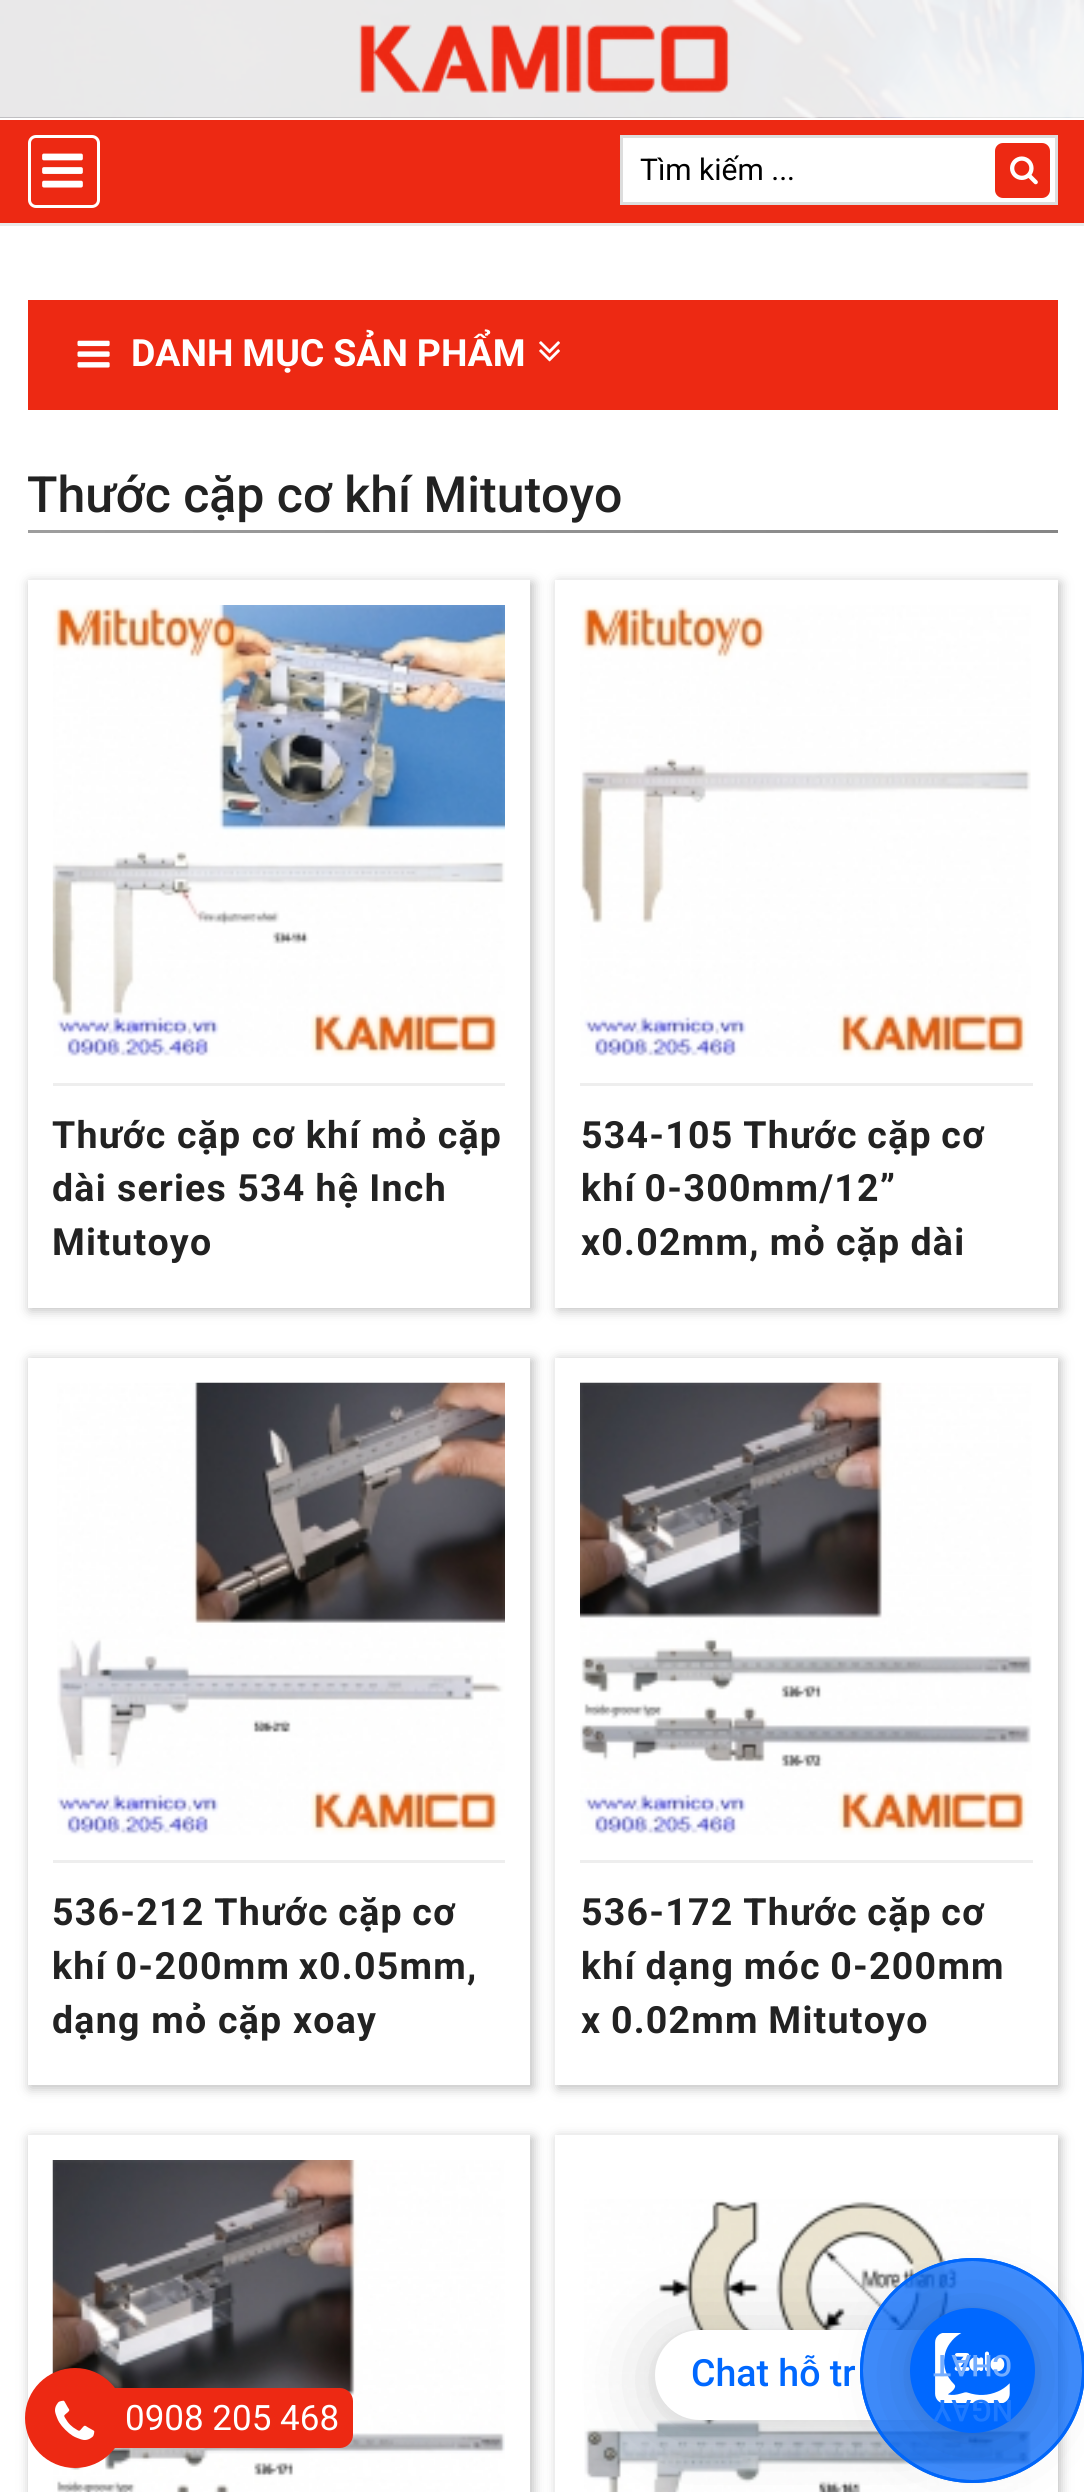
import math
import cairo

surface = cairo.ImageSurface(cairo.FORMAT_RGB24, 1084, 2492)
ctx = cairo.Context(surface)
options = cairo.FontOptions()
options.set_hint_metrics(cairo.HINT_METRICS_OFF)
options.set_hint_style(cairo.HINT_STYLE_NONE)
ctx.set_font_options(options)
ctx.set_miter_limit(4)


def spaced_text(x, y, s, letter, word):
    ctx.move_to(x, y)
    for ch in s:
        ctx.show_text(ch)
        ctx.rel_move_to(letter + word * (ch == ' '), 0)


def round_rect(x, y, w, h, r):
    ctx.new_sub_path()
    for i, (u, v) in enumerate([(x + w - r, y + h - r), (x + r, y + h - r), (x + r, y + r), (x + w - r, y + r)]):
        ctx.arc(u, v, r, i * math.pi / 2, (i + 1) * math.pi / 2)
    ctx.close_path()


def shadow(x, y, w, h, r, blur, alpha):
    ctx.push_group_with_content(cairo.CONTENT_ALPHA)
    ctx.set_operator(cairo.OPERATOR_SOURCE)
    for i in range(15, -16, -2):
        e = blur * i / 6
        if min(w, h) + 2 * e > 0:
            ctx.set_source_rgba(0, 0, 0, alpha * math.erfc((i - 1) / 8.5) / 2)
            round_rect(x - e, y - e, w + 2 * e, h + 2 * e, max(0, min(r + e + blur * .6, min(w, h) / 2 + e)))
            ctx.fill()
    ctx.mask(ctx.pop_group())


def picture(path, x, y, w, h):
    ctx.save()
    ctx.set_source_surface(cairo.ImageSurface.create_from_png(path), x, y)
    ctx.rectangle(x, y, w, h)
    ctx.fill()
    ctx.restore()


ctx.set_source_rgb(1, 1, 1)
ctx.paint()
picture("img1.png", 0, 0, 1084, 118)
picture("img2.png", 359, 24, 371, 69)
ctx.set_source_rgb(0.929, 0.161, 0.078)
ctx.rectangle(0, 120, 1084, 103)
ctx.fill()
ctx.set_source_rgb(0.914, 0.914, 0.914)
ctx.rectangle(0, 223, 1084, 3)
ctx.fill()
round_rect(29.5, 136.5, 69, 70, 6.5)
ctx.set_source_rgb(1, 1, 1)
ctx.set_line_width(3)
ctx.stroke()
picture("img3.png", 42, 153, 41, 35)
ctx.rectangle(621.5, 136.5, 435, 67)
ctx.fill_preserve()
ctx.set_source_rgb(0.867, 0.867, 0.867)
ctx.stroke()
ctx.select_font_face("Roboto")
ctx.set_font_size(30)
ctx.set_source_rgb(0, 0, 0)
ctx.move_to(640, 180)
ctx.show_text("Tìm kiếm ...")
ctx.set_source_rgb(0.929, 0.161, 0.078)
round_rect(995, 143, 55, 55, 8)
ctx.fill()
picture("img4.png", 1010, 156, 28, 29)
ctx.rectangle(28, 300, 1030, 110)
ctx.fill()
picture("img5.png", 77, 340, 33, 28)
ctx.select_font_face("Roboto", cairo.FONT_SLANT_NORMAL, cairo.FONT_WEIGHT_BOLD)
ctx.set_font_size(37.5)
ctx.set_source_rgb(1, 1, 1)
spaced_text(131, 366, "DANH MỤC SẢN PHẨM", 0, -0.5)
picture("img6.png", 539, 341, 21, 21)
ctx.select_font_face("Roboto Medium")
ctx.set_font_size(50)
ctx.set_source_rgb(0.133, 0.133, 0.133)
ctx.move_to(27, 512)
ctx.show_text("Thước cặp cơ khí Mitutoyo")
gradient = cairo.LinearGradient(1058, 531, -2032, 531)
gradient.add_color_stop_rgba(0, 0.525, 0.525, 0.525, 1)
gradient.add_color_stop_rgba(1, 0.8, 0.8, 0.8, 1)
ctx.set_source(gradient)
ctx.rectangle(28, 530, 1030, 3)
ctx.fill()
ctx.save()
ctx.set_fill_rule(cairo.FILL_RULE_EVEN_ODD)
ctx.new_path()
ctx.move_to(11, 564)
ctx.line_to(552, 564)
ctx.line_to(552, 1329)
ctx.line_to(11, 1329)
ctx.close_path()
ctx.move_to(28, 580)
ctx.line_to(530, 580)
ctx.line_to(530, 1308)
ctx.line_to(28, 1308)
ctx.close_path()
ctx.clip()
ctx.set_source_rgb(0.733, 0.733, 0.733)
shadow(30, 583, 503, 727, 0, 6, 1)
ctx.restore()
picture("img7.png", 52, 605, 453, 452)
ctx.set_source_rgb(0.933, 0.933, 0.933)
ctx.rectangle(53, 1083, 452, 3)
ctx.fill()
ctx.select_font_face("Roboto", cairo.FONT_SLANT_NORMAL, cairo.FONT_WEIGHT_BOLD)
ctx.set_font_size(37.5)
ctx.set_source_rgb(0.133, 0.133, 0.133)
spaced_text(52, 1148, "Thước cặp cơ khí mỏ cặp", 1.25, -0.25)
spaced_text(52, 1201, "dài series 534 hệ Inch", 1.25, -0.5)
spaced_text(52, 1255, "Mitutoyo", 1.25, 0)
ctx.save()
ctx.set_fill_rule(cairo.FILL_RULE_EVEN_ODD)
ctx.new_path()
ctx.move_to(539, 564)
ctx.line_to(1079, 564)
ctx.line_to(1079, 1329)
ctx.line_to(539, 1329)
ctx.close_path()
ctx.move_to(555, 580)
ctx.line_to(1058, 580)
ctx.line_to(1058, 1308)
ctx.line_to(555, 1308)
ctx.close_path()
ctx.clip()
ctx.set_source_rgb(0.733, 0.733, 0.733)
shadow(558, 583, 502, 727, 0, 6, 1)
ctx.restore()
picture("img8.png", 580, 605, 451, 452)
ctx.set_source_rgb(0.933, 0.933, 0.933)
ctx.rectangle(580, 1083, 453, 3)
ctx.fill()
ctx.set_source_rgb(0.133, 0.133, 0.133)
spaced_text(581, 1148, "534-105 Thước cặp cơ", 1.25, -1)
spaced_text(581, 1201, "khí 0-300mm/12”", 1.25, -2)
spaced_text(581, 1255, "x0.02mm, mỏ cặp dài", 1.25, -0.5)
ctx.save()
ctx.set_fill_rule(cairo.FILL_RULE_EVEN_ODD)
ctx.new_path()
ctx.move_to(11, 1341)
ctx.line_to(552, 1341)
ctx.line_to(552, 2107)
ctx.line_to(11, 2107)
ctx.close_path()
ctx.move_to(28, 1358)
ctx.line_to(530, 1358)
ctx.line_to(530, 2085)
ctx.line_to(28, 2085)
ctx.close_path()
ctx.clip()
ctx.set_source_rgb(0.733, 0.733, 0.733)
shadow(30, 1360, 503, 728, 0, 6, 1)
ctx.restore()
picture("img9.png", 57, 1382, 448, 453)
ctx.set_source_rgb(0.933, 0.933, 0.933)
ctx.rectangle(53, 1860, 452, 3)
ctx.fill()
ctx.set_source_rgb(0.133, 0.133, 0.133)
spaced_text(52, 1925, "536-212 Thước cặp cơ", 1.25, -1)
spaced_text(52, 1979, "khí 0-200mm x0.05mm,", 1.25, -2)
spaced_text(52, 2033, "dạng mỏ cặp xoay", 1.25, 0)
ctx.save()
ctx.set_fill_rule(cairo.FILL_RULE_EVEN_ODD)
ctx.new_path()
ctx.move_to(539, 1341)
ctx.line_to(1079, 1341)
ctx.line_to(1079, 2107)
ctx.line_to(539, 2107)
ctx.close_path()
ctx.move_to(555, 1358)
ctx.line_to(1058, 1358)
ctx.line_to(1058, 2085)
ctx.line_to(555, 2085)
ctx.close_path()
ctx.clip()
ctx.set_source_rgb(0.733, 0.733, 0.733)
shadow(558, 1360, 502, 728, 0, 6, 1)
ctx.restore()
picture("img10.png", 580, 1382, 452, 453)
ctx.set_source_rgb(0.933, 0.933, 0.933)
ctx.rectangle(580, 1860, 453, 3)
ctx.fill()
ctx.set_source_rgb(0.133, 0.133, 0.133)
spaced_text(581, 1925, "536-172 Thước cặp cơ", 1.25, -1)
spaced_text(581, 1979, "khí dạng móc 0-200mm", 1.25, -1)
spaced_text(581, 2033, "x 0.02mm Mitutoyo", 1.25, -1)
ctx.save()
ctx.set_fill_rule(cairo.FILL_RULE_EVEN_ODD)
ctx.new_path()
ctx.move_to(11, 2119)
ctx.line_to(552, 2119)
ctx.line_to(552, 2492)
ctx.line_to(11, 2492)
ctx.close_path()
ctx.move_to(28, 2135)
ctx.line_to(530, 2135)
ctx.line_to(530, 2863)
ctx.line_to(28, 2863)
ctx.close_path()
ctx.clip()
ctx.set_source_rgb(0.733, 0.733, 0.733)
shadow(30, 2138, 503, 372, 0, 6, 1)
ctx.restore()
picture("img11.png", 52, 2160, 453, 332)
ctx.save()
ctx.set_fill_rule(cairo.FILL_RULE_EVEN_ODD)
ctx.new_path()
ctx.move_to(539, 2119)
ctx.line_to(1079, 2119)
ctx.line_to(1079, 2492)
ctx.line_to(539, 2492)
ctx.close_path()
ctx.move_to(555, 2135)
ctx.line_to(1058, 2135)
ctx.line_to(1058, 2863)
ctx.line_to(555, 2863)
ctx.close_path()
ctx.clip()
ctx.set_source_rgb(0.733, 0.733, 0.733)
shadow(558, 2138, 502, 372, 0, 6, 1)
ctx.restore()
picture("img12.png", 584, 2199, 447, 293)
ctx.set_source_rgb(0.929, 0.161, 0.078)
ctx.arc(75, 2418, 50, 0, 2 * math.pi)
ctx.fill()
picture("img13.png", 55, 2400, 40, 40)
ctx.new_path()
ctx.move_to(113, 2388)
ctx.line_to(340, 2388)
ctx.curve_to(347, 2388, 353, 2394, 353, 2401)
ctx.line_to(353, 2435)
ctx.curve_to(353, 2442, 347, 2448, 340, 2448)
ctx.line_to(113, 2448)
ctx.close_path()
ctx.fill()
ctx.select_font_face("Roboto")
ctx.set_font_size(35)
ctx.set_source_rgb(1, 1, 1)
ctx.move_to(125, 2430)
ctx.show_text("0908 205 468")
ctx.set_source_rgb(0, 0, 0)
shadow(655, 2335, 285, 90, 45, 40, 0.16)
shadow(655, 2333, 285, 90, 45, 7.5, 0.06)
ctx.set_source_rgb(1, 1, 1)
ctx.new_path()
ctx.move_to(700, 2330)
ctx.line_to(940, 2330)
ctx.line_to(940, 2420)
ctx.line_to(700, 2420)
ctx.curve_to(675, 2420, 655, 2400, 655, 2375)
ctx.curve_to(655, 2350, 675, 2330, 700, 2330)
ctx.close_path()
ctx.fill()
ctx.select_font_face("Roboto Medium")
ctx.set_font_size(37.5)
ctx.set_source_rgb(0, 0.408, 1)
ctx.move_to(691, 2386)
ctx.show_text("Chat hỗ tr")
ctx.set_source_rgba(0, 0.408, 1, 0.5)
ctx.new_path()
ctx.arc(972.5, 2370.5, 111, 0, 2 * math.pi)
ctx.fill_preserve()
ctx.set_source_rgb(0, 0.408, 1)
ctx.stroke()
ctx.set_source_rgba(0, 0.408, 1, 0.5)
ctx.arc(972.5, 2370.5, 111, 0, 2 * math.pi)
ctx.fill_preserve()
ctx.set_source_rgb(0, 0.408, 1)
ctx.stroke()
ctx.set_source_rgb(0, 0, 0)
shadow(910, 2313, 125, 125, 62.5, 40, 0.16)
shadow(910, 2310, 125, 125, 62.5, 7.5, 0.06)
ctx.set_source_rgb(0, 0.408, 1)
ctx.arc(972.5, 2370.5, 62.5, 0, 2 * math.pi)
ctx.fill()
picture("img14.png", 935, 2333, 75, 70)
ctx.set_font_size(30)
ctx.set_source_rgb(0.459, 0.678, 1)
ctx.save()
ctx.translate(1012, 2355)
ctx.rotate(180 * math.pi / 180)
ctx.move_to(0, 0)
ctx.show_text("CHAT")
ctx.restore()
ctx.set_source_rgb(0.122, 0.478, 1)
ctx.save()
ctx.translate(1013, 2400)
ctx.rotate(180 * math.pi / 180)
ctx.move_to(0, 0)
ctx.show_text("NGAY")
ctx.restore()
surface.write_to_png("page.png")
